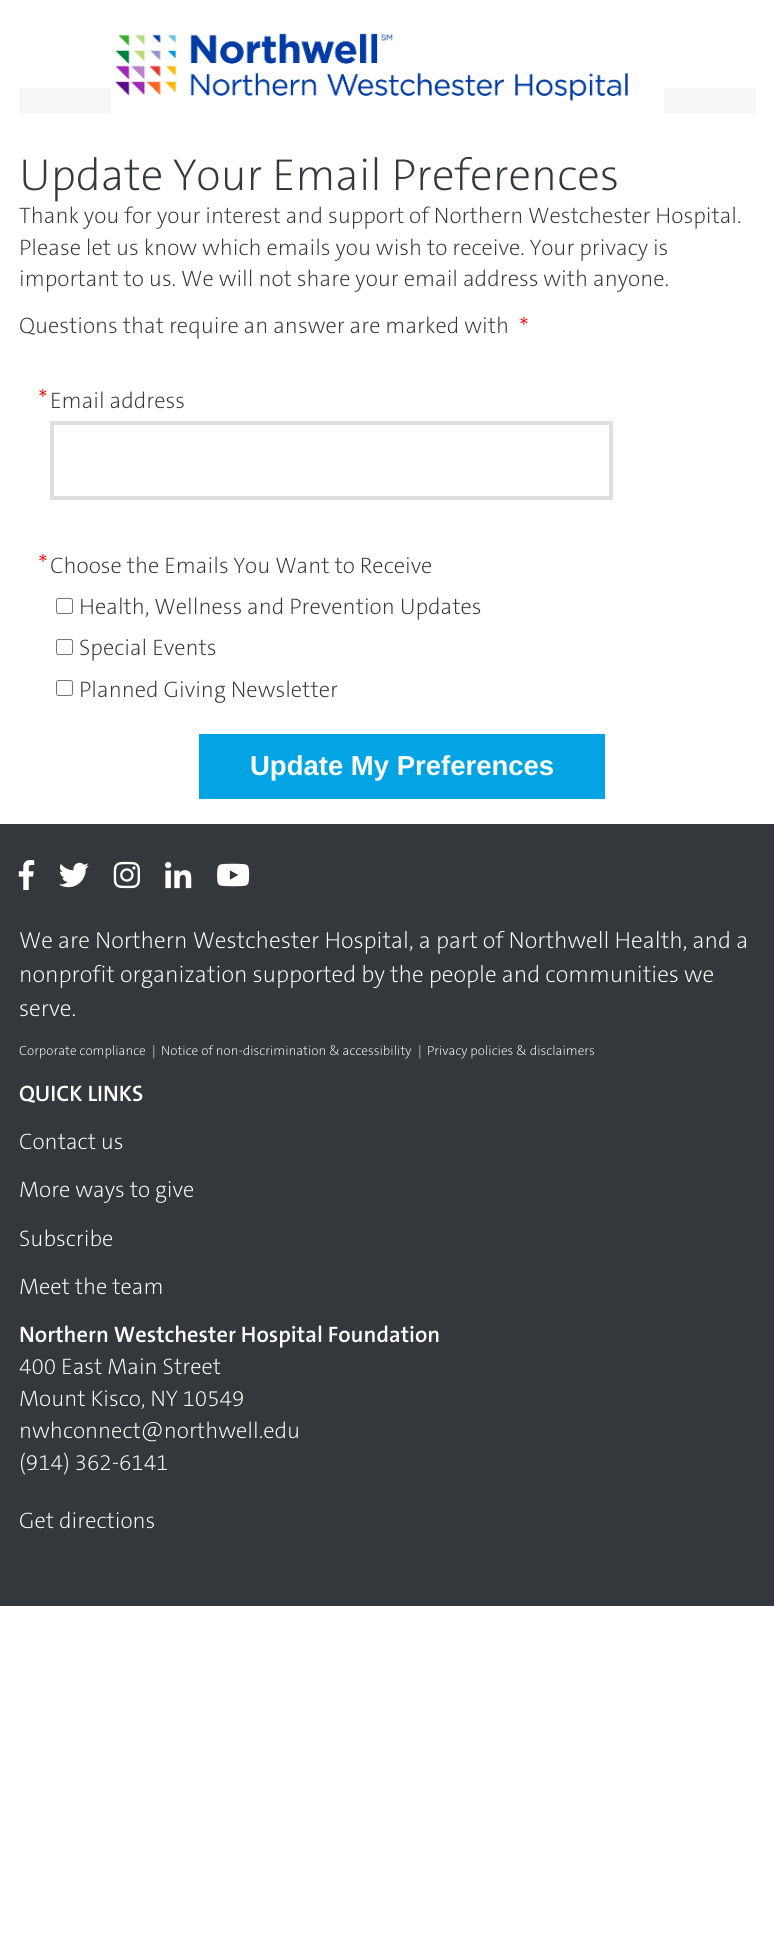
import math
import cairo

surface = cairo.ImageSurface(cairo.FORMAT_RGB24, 774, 1956)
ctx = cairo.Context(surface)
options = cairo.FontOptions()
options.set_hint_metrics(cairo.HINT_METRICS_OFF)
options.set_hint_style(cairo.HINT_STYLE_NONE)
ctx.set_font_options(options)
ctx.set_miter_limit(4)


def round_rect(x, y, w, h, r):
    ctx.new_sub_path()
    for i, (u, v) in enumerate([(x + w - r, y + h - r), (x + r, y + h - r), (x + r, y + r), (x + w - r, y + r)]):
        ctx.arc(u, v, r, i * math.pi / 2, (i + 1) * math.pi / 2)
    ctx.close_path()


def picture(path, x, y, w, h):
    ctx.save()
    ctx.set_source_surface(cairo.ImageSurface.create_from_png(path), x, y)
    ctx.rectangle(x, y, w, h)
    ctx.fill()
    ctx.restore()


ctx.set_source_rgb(1, 1, 1)
ctx.paint()
ctx.set_source_rgb(0.965, 0.965, 0.965)
ctx.rectangle(19, 88, 737, 25)
ctx.fill()
picture("img1.png", 111, 33, 553, 80)
ctx.select_font_face("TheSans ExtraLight")
ctx.set_font_size(45)
ctx.set_source_rgb(0.204, 0.22, 0.235)
ctx.move_to(19, 190)
ctx.show_text("Update Your Email Preferences")
ctx.set_font_size(22.5)
ctx.move_to(19, 223)
ctx.show_text("Thank you for your interest and support of Northern Westchester Hospital.")
ctx.move_to(19, 255)
ctx.show_text("Please let us know which emails you wish to receive. Your privacy is")
ctx.move_to(19, 286)
ctx.show_text("important to us. We will not share your email address with anyone.")
ctx.move_to(19, 333)
ctx.show_text("Questions that require an answer are marked with")
ctx.set_font_size(27.5)
ctx.set_source_rgb(1, 0, 0)
ctx.move_to(519, 337)
ctx.show_text("*")
ctx.move_to(38, 409)
ctx.show_text("*")
ctx.set_font_size(22.5)
ctx.set_source_rgb(0.204, 0.22, 0.235)
ctx.move_to(50, 408)
ctx.show_text("Email address")
ctx.rectangle(52, 423, 559, 75)
ctx.set_source_rgb(0.875, 0.875, 0.875)
ctx.set_line_width(4)
ctx.stroke()
ctx.set_font_size(27.5)
ctx.set_source_rgb(1, 0, 0)
ctx.move_to(38, 574)
ctx.show_text("*")
ctx.set_font_size(22.5)
ctx.set_source_rgb(0.204, 0.22, 0.235)
ctx.move_to(50, 573)
ctx.show_text("Choose the Emails You Want to Receive")
round_rect(56.5, 598.5, 16, 15, 2)
ctx.set_source_rgb(0.463, 0.463, 0.463)
ctx.set_line_width(1)
ctx.stroke()
ctx.set_source_rgb(0.204, 0.22, 0.235)
ctx.move_to(79, 614)
ctx.show_text("Health, Wellness and Prevention Updates")
round_rect(56.5, 639.5, 16, 15, 2)
ctx.set_source_rgb(0.463, 0.463, 0.463)
ctx.stroke()
ctx.set_source_rgb(0.204, 0.22, 0.235)
ctx.move_to(79, 655)
ctx.show_text("Special Events")
round_rect(56.5, 680.5, 16, 15, 2)
ctx.set_source_rgb(0.463, 0.463, 0.463)
ctx.stroke()
ctx.set_source_rgb(0.204, 0.22, 0.235)
ctx.move_to(79, 697)
ctx.show_text("Planned Giving Newsletter")
ctx.set_source_rgb(0.008, 0.643, 0.89)
ctx.rectangle(199, 734, 406, 65)
ctx.fill()
ctx.select_font_face("Liberation Sans", cairo.FONT_SLANT_NORMAL, cairo.FONT_WEIGHT_BOLD)
ctx.set_font_size(27.5)
ctx.set_source_rgb(1, 1, 1)
ctx.move_to(250, 775)
ctx.show_text("Update My Preferences")
ctx.set_source_rgb(0.204, 0.22, 0.235)
ctx.rectangle(0, 824, 774, 782)
ctx.fill()
picture("img2.png", 18, 860, 17, 30)
picture("img3.png", 59, 862, 30, 26)
picture("img4.png", 113, 861, 27, 28)
picture("img5.png", 165, 861, 27, 28)
picture("img6.png", 217, 863, 33, 24)
ctx.select_font_face("TheSans ExtraLight")
ctx.set_font_size(23.3)
ctx.set_source_rgb(1, 1, 1)
ctx.move_to(19, 948)
ctx.show_text("We are Northern Westchester Hospital, a part of Northwell Health, and a")
ctx.move_to(19, 982)
ctx.show_text("nonprofit organization supported by the people and communities we")
ctx.move_to(19, 1016)
ctx.show_text("serve.")
ctx.set_font_size(13.3)
ctx.move_to(19, 1055)
ctx.show_text("Corporate compliance")
ctx.move_to(152, 1055)
ctx.show_text("|")
ctx.move_to(161, 1055)
ctx.show_text("Notice of non-discrimination & accessibility")
ctx.move_to(418, 1055)
ctx.show_text("|")
ctx.move_to(427, 1055)
ctx.show_text("Privacy policies & disclaimers")
ctx.select_font_face("TheSans SemiBold")
ctx.set_font_size(22.5)
ctx.move_to(19, 1101)
ctx.show_text("QUICK LINKS")
ctx.select_font_face("TheSans ExtraLight")
ctx.move_to(19, 1149)
ctx.show_text("Contact us")
ctx.move_to(19, 1197)
ctx.show_text("More ways to give")
ctx.move_to(19, 1246)
ctx.show_text("Subscribe")
ctx.move_to(19, 1294)
ctx.show_text("Meet the team")
ctx.select_font_face("TheSans SemiBold")
ctx.move_to(19, 1342)
ctx.show_text("Northern Westchester Hospital Foundation")
ctx.select_font_face("TheSans ExtraLight")
ctx.move_to(19, 1374)
ctx.show_text("400 East Main Street")
ctx.move_to(19, 1406)
ctx.show_text("Mount Kisco, NY 10549")
ctx.move_to(19, 1438)
ctx.show_text("nwhconnect@northwell.edu")
ctx.move_to(19, 1470)
ctx.show_text("(914) 362-6141")
ctx.move_to(19, 1528)
ctx.show_text("Get directions")
surface.write_to_png("page.png")
